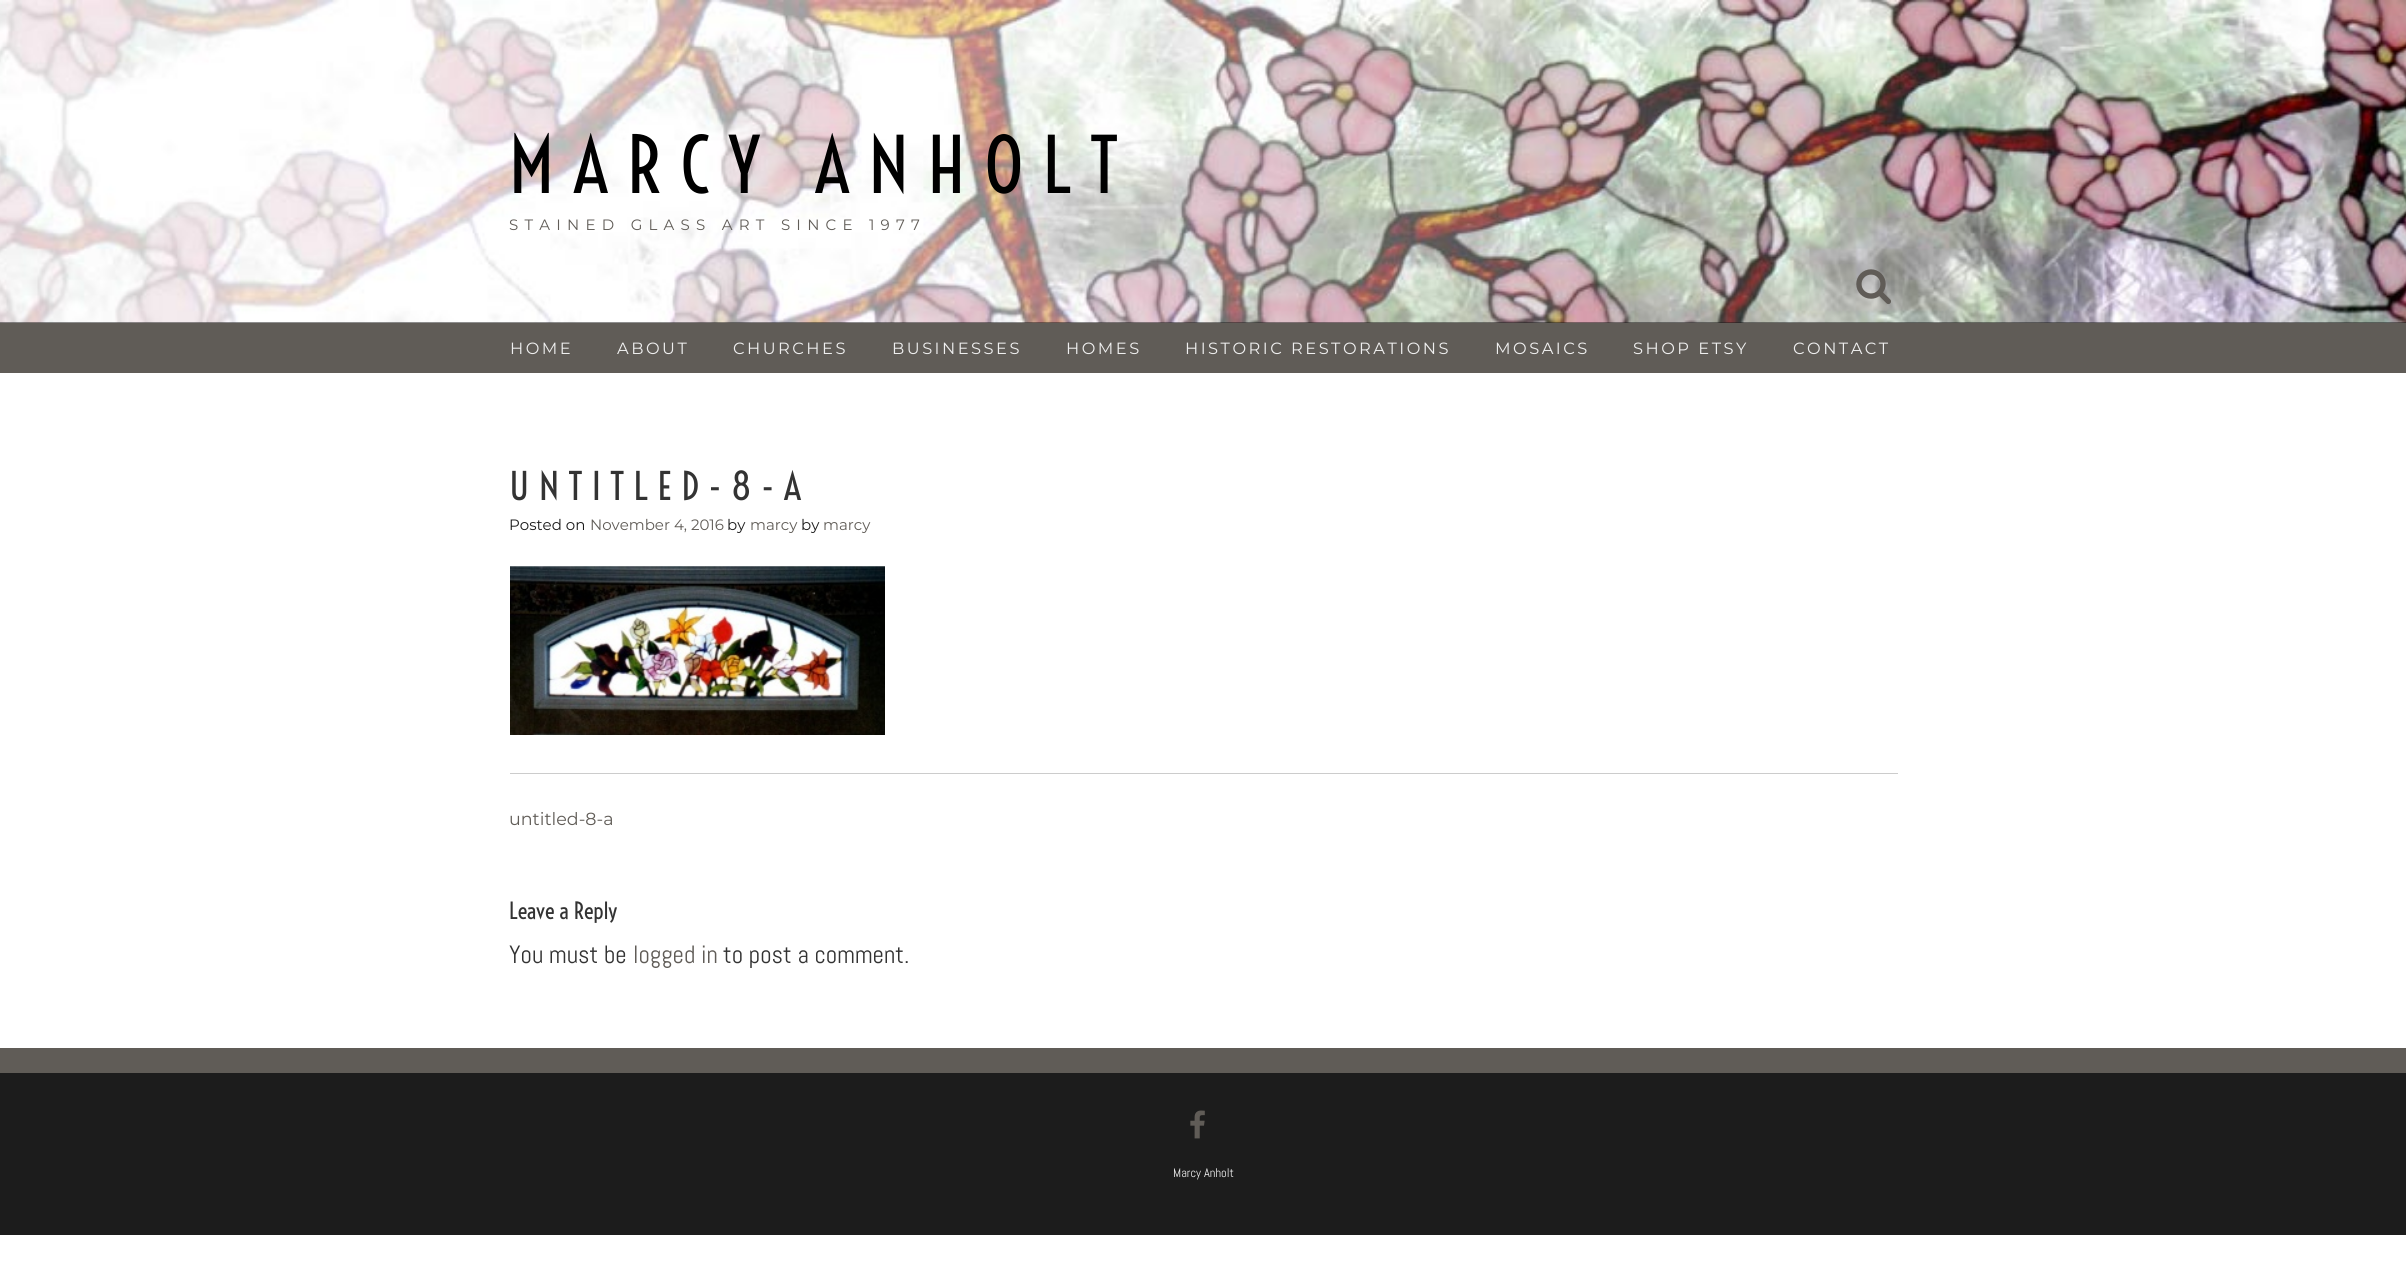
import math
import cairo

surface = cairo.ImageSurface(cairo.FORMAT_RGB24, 2406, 1287)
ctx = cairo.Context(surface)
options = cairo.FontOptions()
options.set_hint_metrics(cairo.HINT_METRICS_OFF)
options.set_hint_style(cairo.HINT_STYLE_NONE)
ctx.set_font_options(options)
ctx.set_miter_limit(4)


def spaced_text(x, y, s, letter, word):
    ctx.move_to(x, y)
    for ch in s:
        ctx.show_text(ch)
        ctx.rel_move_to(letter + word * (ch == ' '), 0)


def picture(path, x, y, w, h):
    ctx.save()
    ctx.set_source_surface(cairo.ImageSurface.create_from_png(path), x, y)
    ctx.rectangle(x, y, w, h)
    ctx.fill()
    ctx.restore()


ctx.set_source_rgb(1, 1, 1)
ctx.paint()
ctx.set_source_rgb(0.11, 0.11, 0.11)
ctx.rectangle(0, 322, 2406, 1)
ctx.fill()
picture("img1.png", 0, 0, 2406, 323)
ctx.select_font_face("Voltaire")
ctx.set_font_size(75)
ctx.set_source_rgb(0, 0, 0)
spaced_text(509, 193, "MARCY ANHOLT", 18.75, 0)
ctx.select_font_face("Montserrat")
ctx.set_font_size(15)
ctx.set_source_rgb(0.376, 0.361, 0.341)
spaced_text(509, 230, "STAINED GLASS ART SINCE 1977", 6.25, 0)
picture("img2.png", 1856, 269, 35, 36)
ctx.rectangle(0, 323, 2406, 50)
ctx.fill()
ctx.set_font_size(16.25)
ctx.set_source_rgb(0.937, 0.937, 0.937)
spaced_text(510, 354, "HOME", 2.5, 0)
spaced_text(617, 354, "ABOUT", 2.5, 0)
spaced_text(733, 354, "CHURCHES", 2.5, 0)
spaced_text(892, 354, "BUSINESSES", 2.5, 0)
spaced_text(1066, 354, "HOMES", 2.5, 0)
spaced_text(1185, 354, "HISTORIC RESTORATIONS", 2.5, 0)
spaced_text(1495, 354, "MOSAICS", 2.5, 0)
spaced_text(1633, 354, "SHOP ETSY", 2.5, 0)
spaced_text(1793, 354, "CONTACT", 2.5, 0)
ctx.select_font_face("Voltaire")
ctx.set_font_size(37.5)
ctx.set_source_rgb(0.2, 0.2, 0.2)
spaced_text(509, 500, "UNTITLED-8-A", 9.4, 0)
ctx.select_font_face("Montserrat")
ctx.set_font_size(15)
ctx.set_source_rgb(0.11, 0.11, 0.11)
ctx.move_to(509, 530)
ctx.show_text("Posted on")
ctx.set_source_rgb(0.376, 0.361, 0.341)
ctx.move_to(590, 530)
ctx.show_text("November 4, 2016")
ctx.set_source_rgb(0.11, 0.11, 0.11)
ctx.move_to(727, 530)
ctx.show_text("by")
ctx.set_source_rgb(0.376, 0.361, 0.341)
ctx.move_to(750, 530)
ctx.show_text("marcy")
ctx.set_source_rgb(0.11, 0.11, 0.11)
ctx.move_to(801, 530)
ctx.show_text("by")
ctx.set_source_rgb(0.376, 0.361, 0.341)
ctx.move_to(823, 530)
ctx.show_text("marcy")
picture("img3.png", 510, 566, 375, 169)
ctx.set_source_rgb(0.8, 0.8, 0.8)
ctx.rectangle(510, 773, 1388, 1)
ctx.fill()
ctx.set_font_size(17.5)
ctx.set_source_rgb(0.376, 0.361, 0.341)
ctx.move_to(509, 825)
ctx.show_text("untitled-8-a")
ctx.select_font_face("Voltaire")
ctx.set_font_size(22.5)
ctx.set_source_rgb(0.2, 0.2, 0.2)
ctx.move_to(509, 919)
ctx.show_text("Leave a Reply")
ctx.select_font_face("Abel")
ctx.set_font_size(25)
ctx.move_to(509, 963)
ctx.show_text("You must be")
ctx.set_source_rgb(0.376, 0.361, 0.341)
ctx.move_to(633, 963)
ctx.show_text("logged in")
ctx.set_source_rgb(0.2, 0.2, 0.2)
ctx.move_to(723, 963)
ctx.show_text("to post a comment.")
ctx.set_source_rgb(0.11, 0.11, 0.11)
ctx.rectangle(0, 1073, 2406, 162)
ctx.fill()
ctx.set_source_rgb(0.376, 0.361, 0.341)
ctx.rectangle(0, 1048, 2406, 25)
ctx.fill()
picture("img4.png", 1190, 1110, 15, 29)
ctx.set_font_size(12.5)
ctx.set_source_rgb(0.937, 0.937, 0.937)
ctx.move_to(1173, 1177)
ctx.show_text("Marcy Anholt")
surface.write_to_png("page.png")
